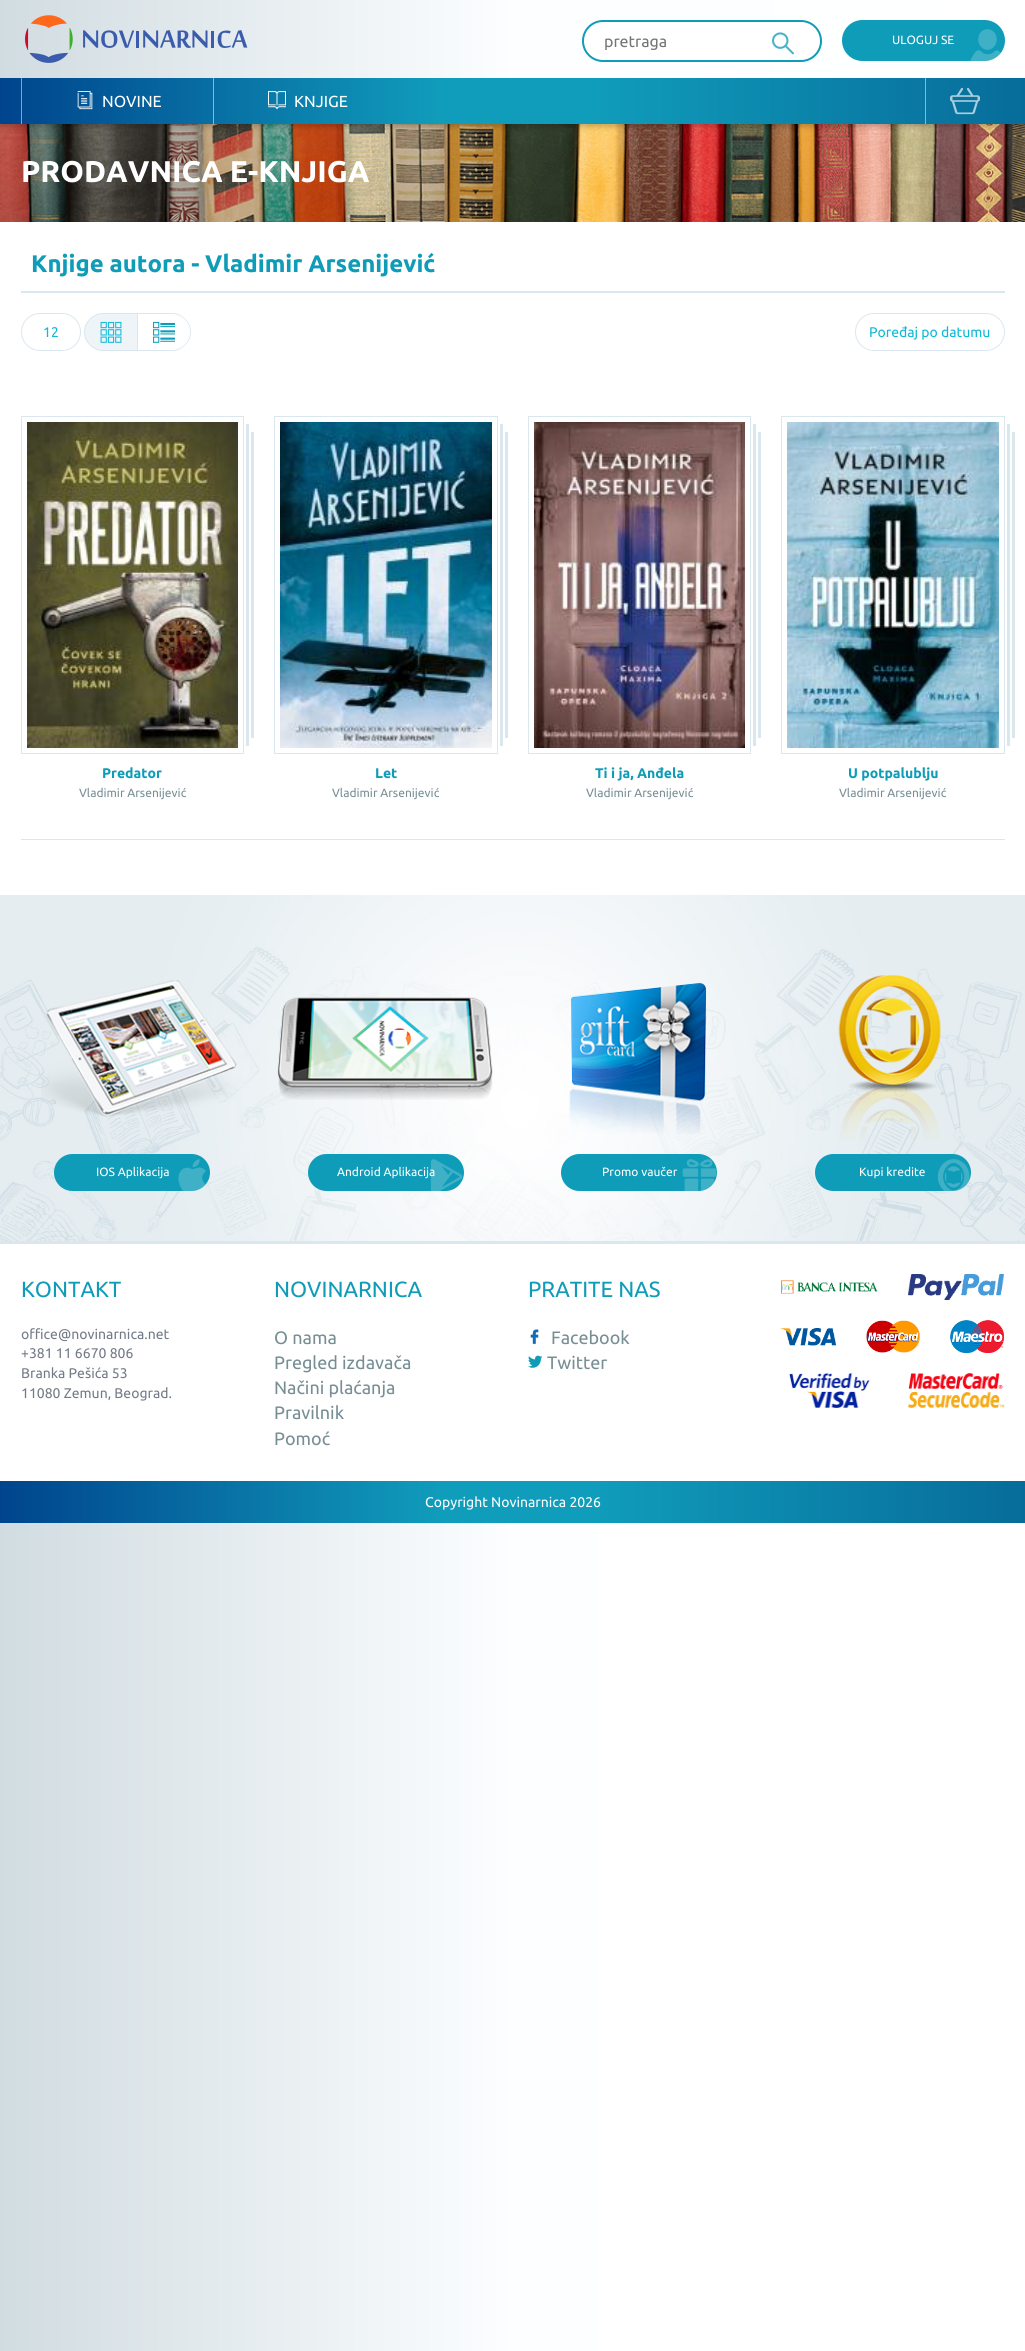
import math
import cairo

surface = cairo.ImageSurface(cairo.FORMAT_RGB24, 1025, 2351)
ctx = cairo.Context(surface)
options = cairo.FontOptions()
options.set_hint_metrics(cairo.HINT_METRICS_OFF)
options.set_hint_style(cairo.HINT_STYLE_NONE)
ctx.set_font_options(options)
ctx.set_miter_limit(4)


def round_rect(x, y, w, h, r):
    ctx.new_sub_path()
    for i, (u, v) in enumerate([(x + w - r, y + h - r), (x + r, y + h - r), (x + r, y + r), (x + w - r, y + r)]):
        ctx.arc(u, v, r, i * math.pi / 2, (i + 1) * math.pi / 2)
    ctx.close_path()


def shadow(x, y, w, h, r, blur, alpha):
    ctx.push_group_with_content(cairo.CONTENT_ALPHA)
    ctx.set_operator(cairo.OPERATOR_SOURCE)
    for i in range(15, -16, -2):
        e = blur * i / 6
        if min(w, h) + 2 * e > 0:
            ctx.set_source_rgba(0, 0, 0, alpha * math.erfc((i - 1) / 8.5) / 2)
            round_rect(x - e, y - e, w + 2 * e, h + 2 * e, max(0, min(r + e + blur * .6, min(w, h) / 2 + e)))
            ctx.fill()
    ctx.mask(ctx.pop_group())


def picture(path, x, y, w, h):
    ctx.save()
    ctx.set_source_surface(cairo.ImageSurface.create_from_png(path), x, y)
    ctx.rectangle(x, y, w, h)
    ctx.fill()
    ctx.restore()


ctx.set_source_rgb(1, 1, 1)
ctx.paint()
gradient = cairo.LinearGradient(0, 1176, 1025, 1176)
gradient.add_color_stop_rgba(0, 0.82, 0.863, 0.882, 1)
gradient.add_color_stop_rgba(0.5, 0.988, 0.996, 1, 1)
gradient.add_color_stop_rgba(1, 1, 1, 1, 1)
ctx.set_source(gradient)
ctx.rectangle(0, 1523, 598, 828)
ctx.fill()
picture("img7.png", 0, 124, 1025, 98)
ctx.set_source_rgb(0, 0, 0)
shadow(0, 81, 1025, 46, 0, 2.5, 0.19)
gradient = cairo.LinearGradient(0, 39, 1025, 39)
gradient.add_color_stop_rgba(0, 0.82, 0.863, 0.882, 1)
gradient.add_color_stop_rgba(0.5, 0.988, 0.996, 1, 1)
gradient.add_color_stop_rgba(1, 1, 1, 1, 1)
ctx.set_source(gradient)
ctx.rectangle(0, 0, 1024, 78)
ctx.fill()
picture("img1.png", 25, 15, 223, 48)
ctx.set_source_rgb(1, 1, 1)
round_rect(583, 21, 238, 40, 20)
ctx.fill_preserve()
ctx.set_source_rgb(0.059, 0.612, 0.722)
ctx.stroke()
ctx.select_font_face("Ubuntu")
ctx.set_font_size(16)
ctx.set_source_rgb(0.459, 0.459, 0.459)
ctx.move_to(604, 47)
ctx.show_text("pretraga")
picture("img2.png", 772, 32, 22, 23)
ctx.set_source_rgb(0.059, 0.612, 0.722)
round_rect(842, 20, 163, 41, 20.5)
ctx.fill()
ctx.set_font_size(12)
ctx.set_source_rgb(1, 1, 1)
ctx.move_to(892, 44)
ctx.show_text("ULOGUJ SE")
picture("img3.png", 970, 29, 31, 32)
gradient = cairo.LinearGradient(0, 101, 1025, 101)
gradient.add_color_stop_rgba(0, 0, 0.267, 0.553, 1)
gradient.add_color_stop_rgba(0.43, 0.063, 0.612, 0.733, 1)
gradient.add_color_stop_rgba(0.58, 0.063, 0.612, 0.733, 1)
gradient.add_color_stop_rgba(1, 0.027, 0.424, 0.604, 1)
ctx.set_source(gradient)
ctx.rectangle(0, 78, 1025, 46)
ctx.fill()
ctx.set_source_rgb(0.502, 0.643, 0.78)
ctx.rectangle(21, 78, 1, 46)
ctx.fill()
picture("img4.png", 77, 91, 16, 19)
ctx.set_font_size(16)
ctx.set_source_rgb(1, 1, 1)
ctx.move_to(102, 107)
ctx.show_text("NOVINE")
ctx.set_source_rgb(0.518, 0.718, 0.82)
ctx.rectangle(213, 78, 1, 46)
ctx.fill()
picture("img5.png", 268, 91, 18, 19)
ctx.set_source_rgb(1, 1, 1)
ctx.move_to(294, 107)
ctx.show_text("KNJIGE")
ctx.set_source_rgb(0.518, 0.733, 0.82)
ctx.rectangle(925, 78, 1, 46)
ctx.fill()
picture("img6.png", 950, 87, 30, 28)
ctx.select_font_face("Ubuntu", cairo.FONT_SLANT_NORMAL, cairo.FONT_WEIGHT_BOLD)
ctx.set_font_size(30)
ctx.set_source_rgb(1, 1, 1)
ctx.move_to(21, 182)
ctx.show_text("PRODAVNICA E-KNJIGA")
ctx.set_source_rgb(0.859, 0.906, 0.937)
ctx.rectangle(21, 291, 984, 2)
ctx.fill()
ctx.set_font_size(24)
ctx.set_source_rgb(0.059, 0.612, 0.722)
ctx.move_to(31, 272)
ctx.show_text("Knjige autora - Vladimir Arsenijević")
round_rect(21.5, 313.5, 59, 37, 18.5)
ctx.set_source_rgb(0.859, 0.906, 0.937)
ctx.set_line_width(1)
ctx.stroke()
ctx.select_font_face("Ubuntu")
ctx.set_font_size(14)
ctx.set_source_rgb(0.059, 0.725, 0.839)
ctx.move_to(43, 337)
ctx.show_text("12")
ctx.set_source_rgb(0.937, 0.957, 0.973)
ctx.new_path()
ctx.move_to(103, 313.5)
ctx.line_to(137.5, 313.5)
ctx.line_to(137.5, 350.5)
ctx.line_to(103, 350.5)
ctx.curve_to(93, 350.5, 84.5, 342, 84.5, 332)
ctx.curve_to(84.5, 322, 93, 313.5, 103, 313.5)
ctx.close_path()
ctx.fill_preserve()
ctx.set_source_rgb(0.859, 0.906, 0.937)
ctx.stroke()
picture("img8.png", 100, 321, 22, 22)
ctx.set_fill_rule(cairo.FILL_RULE_EVEN_ODD)
ctx.new_path()
ctx.move_to(138, 313)
ctx.line_to(172, 313)
ctx.curve_to(182, 313, 191, 322, 191, 332)
ctx.curve_to(191, 342, 182, 351, 172, 351)
ctx.line_to(138, 351)
ctx.close_path()
ctx.move_to(138, 314)
ctx.line_to(172, 314)
ctx.curve_to(182, 314, 190, 322, 190, 332)
ctx.curve_to(190, 342, 182, 350, 172, 350)
ctx.line_to(138, 350)
ctx.close_path()
ctx.fill()
picture("img9.png", 153, 321, 22, 22)
round_rect(855.5, 313.5, 149, 37, 18.5)
ctx.stroke()
ctx.set_source_rgb(0.059, 0.725, 0.839)
ctx.move_to(869, 337)
ctx.show_text("Poređaj po datumu")
ctx.rectangle(21.5, 416.5, 222, 337)
ctx.set_source_rgb(0.859, 0.906, 0.937)
ctx.stroke()
picture("img10.png", 27, 422, 211, 326)
ctx.rectangle(246, 424, 3, 322)
ctx.fill()
ctx.rectangle(251, 432, 3, 306)
ctx.fill()
ctx.select_font_face("Ubuntu", cairo.FONT_SLANT_NORMAL, cairo.FONT_WEIGHT_BOLD)
ctx.set_source_rgb(0.059, 0.612, 0.722)
ctx.move_to(102, 778)
ctx.show_text("Predator")
ctx.select_font_face("Ubuntu")
ctx.set_font_size(12)
ctx.set_source_rgb(0.467, 0.557, 0.584)
ctx.move_to(79, 797)
ctx.show_text("Vladimir Arsenijević")
ctx.rectangle(274.5, 416.5, 223, 337)
ctx.set_source_rgb(0.859, 0.906, 0.937)
ctx.stroke()
picture("img11.png", 280, 422, 212, 326)
ctx.rectangle(500, 424, 3, 322)
ctx.fill()
ctx.rectangle(505, 432, 3, 306)
ctx.fill()
ctx.select_font_face("Ubuntu", cairo.FONT_SLANT_NORMAL, cairo.FONT_WEIGHT_BOLD)
ctx.set_font_size(14)
ctx.set_source_rgb(0.059, 0.612, 0.722)
ctx.move_to(375, 778)
ctx.show_text("Let")
ctx.select_font_face("Ubuntu")
ctx.set_font_size(12)
ctx.set_source_rgb(0.467, 0.557, 0.584)
ctx.move_to(332, 797)
ctx.show_text("Vladimir Arsenijević")
ctx.rectangle(528.5, 416.5, 222, 337)
ctx.set_source_rgb(0.859, 0.906, 0.937)
ctx.stroke()
picture("img12.png", 534, 422, 211, 326)
ctx.rectangle(753, 424, 3, 322)
ctx.fill()
ctx.rectangle(758, 432, 3, 306)
ctx.fill()
ctx.select_font_face("Ubuntu", cairo.FONT_SLANT_NORMAL, cairo.FONT_WEIGHT_BOLD)
ctx.set_font_size(14)
ctx.set_source_rgb(0.059, 0.612, 0.722)
ctx.move_to(595, 778)
ctx.show_text("Ti i ja, Anđela")
ctx.select_font_face("Ubuntu")
ctx.set_font_size(12)
ctx.set_source_rgb(0.467, 0.557, 0.584)
ctx.move_to(586, 797)
ctx.show_text("Vladimir Arsenijević")
ctx.rectangle(781.5, 416.5, 223, 337)
ctx.set_source_rgb(0.859, 0.906, 0.937)
ctx.stroke()
picture("img13.png", 787, 422, 212, 326)
ctx.rectangle(1007, 424, 3, 322)
ctx.fill()
ctx.rectangle(1012, 432, 3, 306)
ctx.fill()
ctx.select_font_face("Ubuntu", cairo.FONT_SLANT_NORMAL, cairo.FONT_WEIGHT_BOLD)
ctx.set_font_size(14)
ctx.set_source_rgb(0.059, 0.612, 0.722)
ctx.move_to(848, 778)
ctx.show_text("U potpalublju")
ctx.select_font_face("Ubuntu")
ctx.set_font_size(12)
ctx.set_source_rgb(0.467, 0.557, 0.584)
ctx.move_to(839, 797)
ctx.show_text("Vladimir Arsenijević")
ctx.set_source_rgb(0.859, 0.906, 0.937)
ctx.rectangle(21, 839, 984, 1)
ctx.fill()
picture("img14.png", 0, 895, 1025, 346)
picture("img15.png", 41, 980, 196, 137)
ctx.set_source_rgb(0.059, 0.612, 0.722)
round_rect(54, 1154, 156, 37, 18.5)
ctx.fill()
ctx.set_source_rgb(1, 1, 1)
ctx.move_to(96, 1176)
ctx.show_text("IOS Aplikacija")
picture("img16.png", 178, 1159, 28, 32)
picture("img17.png", 277, 997, 216, 103)
ctx.set_source_rgb(0.059, 0.612, 0.722)
round_rect(308, 1154, 156, 37, 18.5)
ctx.fill()
ctx.set_source_rgb(1, 1, 1)
ctx.move_to(337, 1176)
ctx.show_text("Android Aplikacija")
picture("img18.png", 430, 1159, 33, 32)
picture("img19.png", 569, 983, 137, 151)
ctx.set_source_rgb(0.059, 0.612, 0.722)
round_rect(561, 1154, 156, 37, 18.5)
ctx.fill()
ctx.set_source_rgb(1, 1, 1)
ctx.move_to(602, 1176)
ctx.show_text("Promo vaučer")
picture("img20.png", 682, 1159, 35, 32)
picture("img21.png", 838, 975, 103, 165)
ctx.set_source_rgb(0.059, 0.612, 0.722)
round_rect(815, 1154, 156, 37, 18.5)
ctx.fill()
ctx.set_source_rgb(1, 1, 1)
ctx.move_to(859, 1176)
ctx.show_text("Kupi kredite")
picture("img22.png", 937, 1159, 33, 32)
ctx.set_source_rgb(0.859, 0.906, 0.937)
ctx.rectangle(0, 1241, 1025, 3)
ctx.fill()
ctx.set_font_size(22)
ctx.set_source_rgb(0.059, 0.612, 0.722)
ctx.move_to(21, 1297)
ctx.show_text("KONTAKT")
ctx.set_font_size(14)
ctx.set_source_rgb(0.455, 0.482, 0.533)
ctx.move_to(21, 1339)
ctx.show_text("office@novinarnica.net")
ctx.move_to(21, 1358)
ctx.show_text("+381 11 6670 806")
ctx.move_to(21, 1378)
ctx.show_text("Branka Pešića 53")
ctx.move_to(21, 1398)
ctx.show_text("11080 Zemun, Beograd.")
ctx.set_font_size(22)
ctx.set_source_rgb(0.059, 0.612, 0.722)
ctx.move_to(274, 1297)
ctx.show_text("NOVINARNICA")
ctx.set_font_size(18)
ctx.set_source_rgb(0.467, 0.557, 0.584)
ctx.move_to(274, 1344)
ctx.show_text("O nama")
ctx.move_to(274, 1369)
ctx.show_text("Pregled izdavača")
ctx.move_to(274, 1394)
ctx.show_text("Načini plaćanja")
ctx.move_to(274, 1419)
ctx.show_text("Pravilnik")
ctx.move_to(274, 1445)
ctx.show_text("Pomoć")
ctx.set_font_size(22)
ctx.set_source_rgb(0.059, 0.612, 0.722)
ctx.move_to(528, 1297)
ctx.show_text("PRATITE NAS")
picture("img23.png", 530, 1329, 9, 15)
ctx.set_font_size(18)
ctx.set_source_rgb(0.467, 0.557, 0.584)
ctx.move_to(551, 1344)
ctx.show_text("Facebook")
picture("img24.png", 528, 1355, 15, 13)
ctx.move_to(547, 1369)
ctx.show_text("Twitter")
picture("img25.png", 781, 1280, 97, 14)
picture("img26.png", 908, 1274, 96, 26)
picture("img27.png", 781, 1327, 55, 19)
picture("img28.png", 866, 1320, 54, 33)
picture("img29.png", 950, 1320, 54, 33)
picture("img30.png", 789, 1373, 81, 35)
picture("img31.png", 908, 1373, 96, 35)
gradient = cairo.LinearGradient(0, 1502, 1025, 1502)
gradient.add_color_stop_rgba(0, 0, 0.267, 0.553, 1)
gradient.add_color_stop_rgba(0.43, 0.063, 0.612, 0.733, 1)
gradient.add_color_stop_rgba(0.58, 0.063, 0.612, 0.733, 1)
gradient.add_color_stop_rgba(1, 0.027, 0.424, 0.604, 1)
ctx.set_source(gradient)
ctx.rectangle(0, 1481, 1025, 42)
ctx.fill()
ctx.set_font_size(14)
ctx.set_source_rgb(1, 1, 1)
ctx.move_to(425, 1507)
ctx.show_text("Copyright Novinarnica 2026")
surface.write_to_png("page.png")
